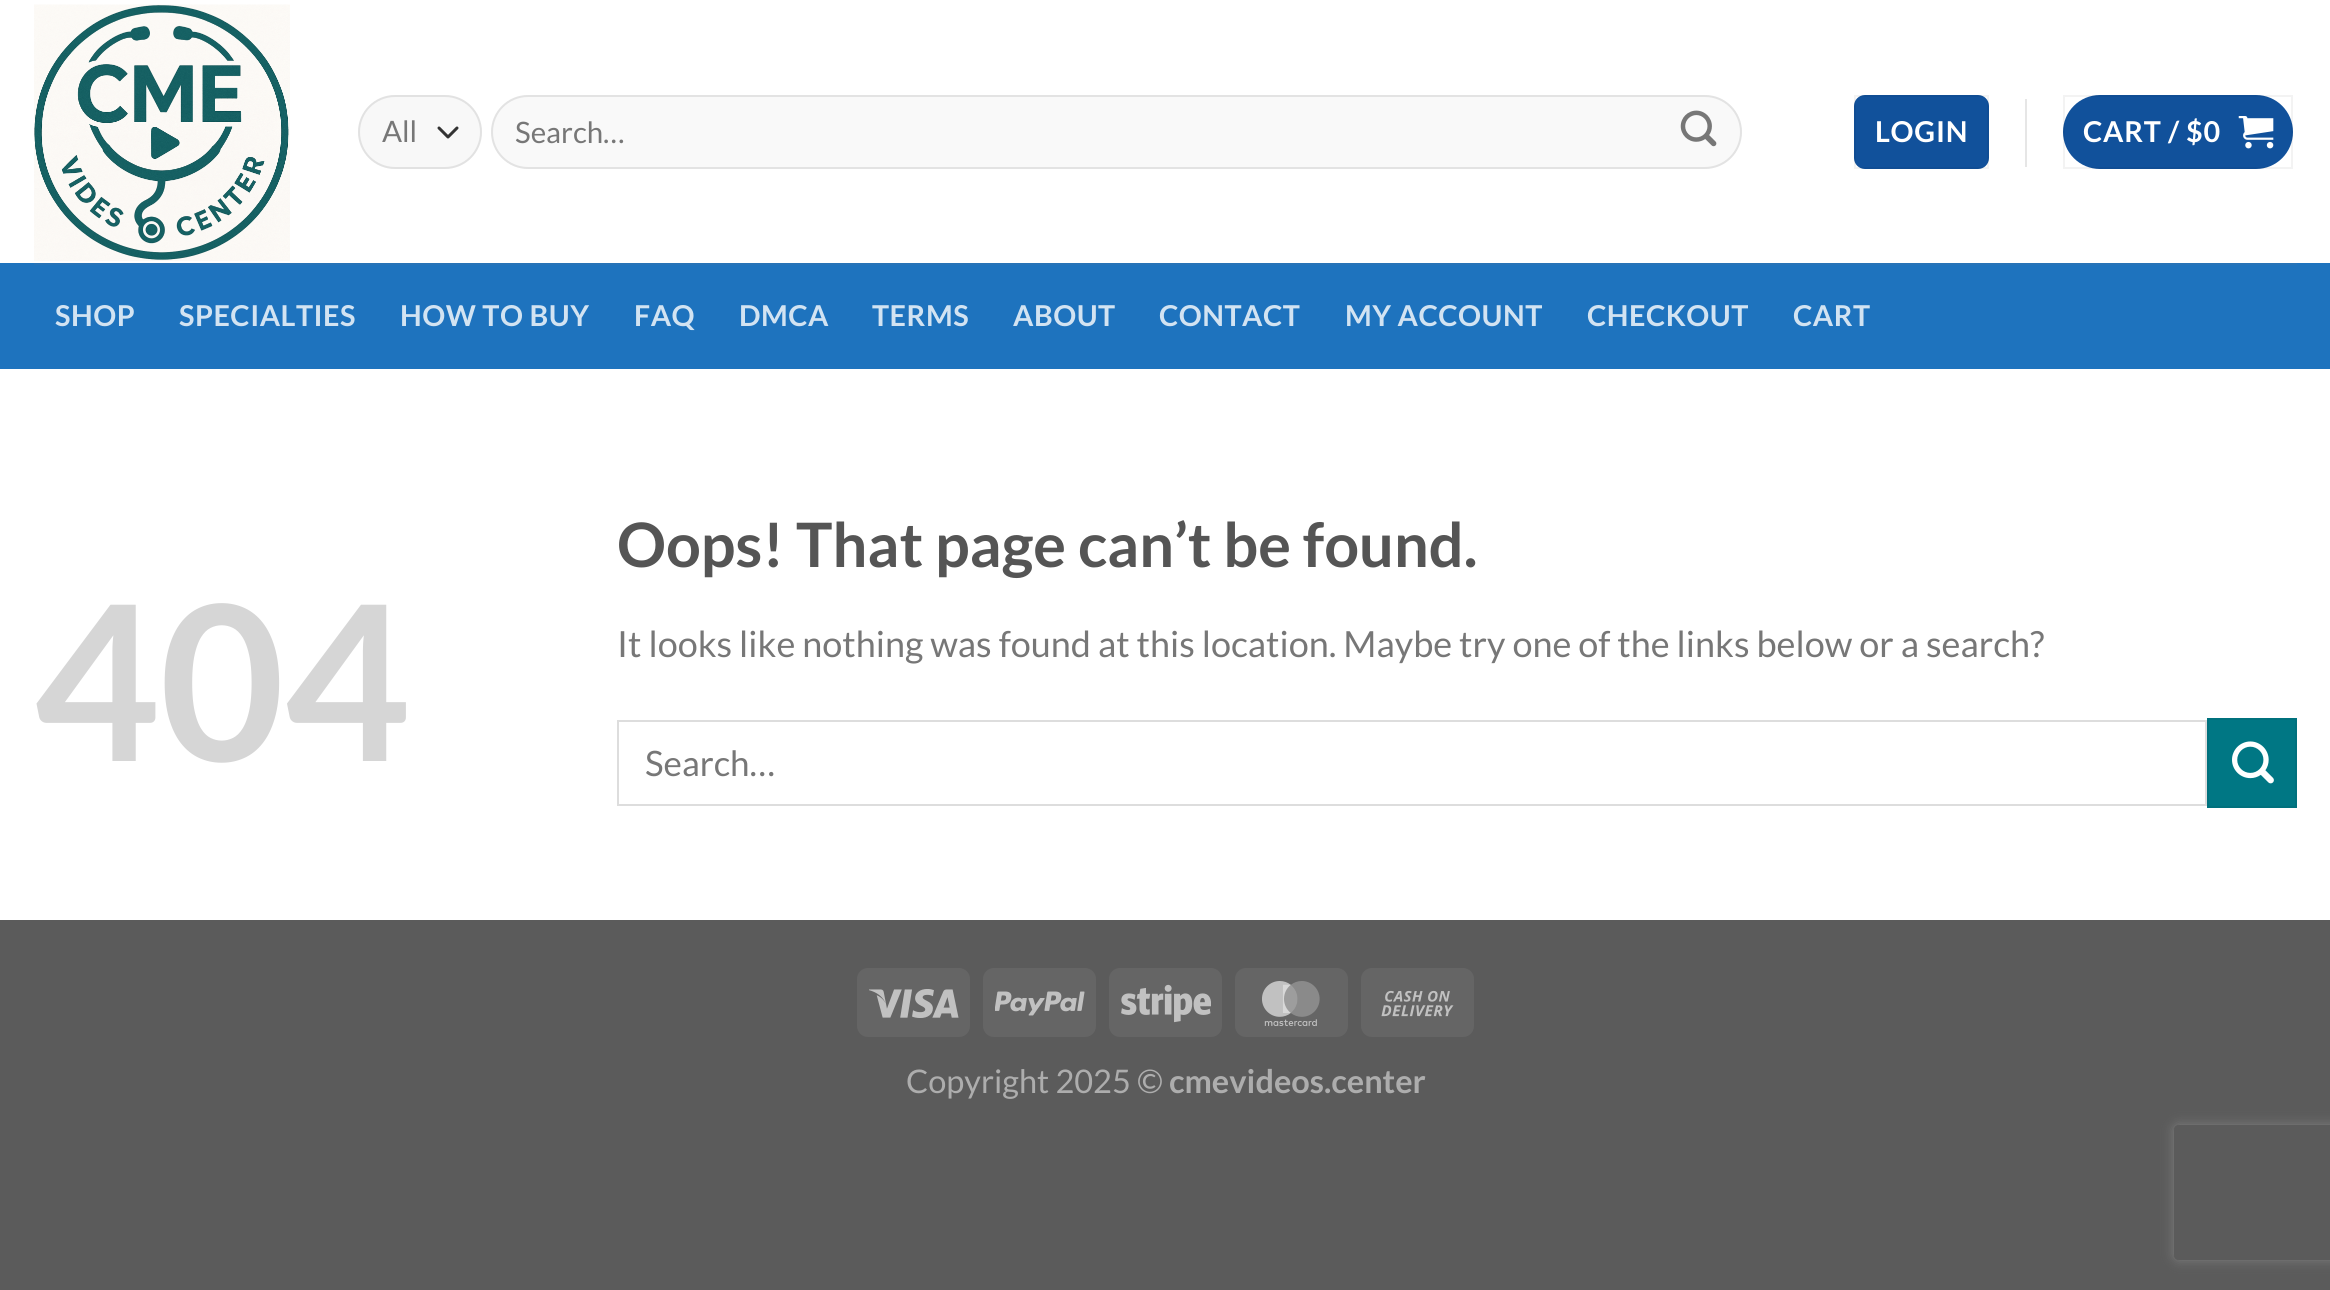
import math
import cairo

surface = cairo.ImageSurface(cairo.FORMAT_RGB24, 2330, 1290)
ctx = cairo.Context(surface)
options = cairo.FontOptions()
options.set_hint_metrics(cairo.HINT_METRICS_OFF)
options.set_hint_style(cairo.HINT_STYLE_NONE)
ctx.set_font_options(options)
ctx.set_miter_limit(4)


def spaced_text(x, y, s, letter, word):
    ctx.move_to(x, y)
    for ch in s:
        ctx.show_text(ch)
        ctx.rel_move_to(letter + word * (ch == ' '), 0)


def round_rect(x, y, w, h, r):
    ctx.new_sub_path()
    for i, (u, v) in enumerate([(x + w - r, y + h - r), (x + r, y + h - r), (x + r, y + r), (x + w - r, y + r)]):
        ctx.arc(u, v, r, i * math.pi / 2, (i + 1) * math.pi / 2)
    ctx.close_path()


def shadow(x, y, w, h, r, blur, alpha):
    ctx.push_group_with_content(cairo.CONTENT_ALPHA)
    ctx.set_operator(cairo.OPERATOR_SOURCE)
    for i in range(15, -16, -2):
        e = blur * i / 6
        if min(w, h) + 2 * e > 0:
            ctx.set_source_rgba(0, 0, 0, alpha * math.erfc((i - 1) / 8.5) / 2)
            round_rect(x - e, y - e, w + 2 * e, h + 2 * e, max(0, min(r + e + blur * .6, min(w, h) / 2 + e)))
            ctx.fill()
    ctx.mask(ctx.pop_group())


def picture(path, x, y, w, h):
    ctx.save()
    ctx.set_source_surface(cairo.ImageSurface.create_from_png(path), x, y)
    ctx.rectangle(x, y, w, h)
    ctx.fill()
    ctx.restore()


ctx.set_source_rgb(0.357, 0.357, 0.357)
ctx.paint()
ctx.set_source_rgb(1, 1, 1)
ctx.rectangle(0, 0, 2330, 920)
ctx.fill()
picture("img1.png", 34, 4, 256, 257)
ctx.set_source_rgb(0.969, 0.969, 0.969)
round_rect(358, 95, 124, 74, 37)
ctx.fill()
ctx.new_path()
ctx.move_to(439, 128)
ctx.line_to(448, 137)
ctx.line_to(457, 128)
ctx.set_source_rgb(0.2, 0.2, 0.2)
ctx.set_line_width(3)
ctx.set_line_cap(cairo.LINE_CAP_ROUND)
ctx.set_line_join(cairo.LINE_JOIN_ROUND)
ctx.stroke()
round_rect(359, 96, 122, 72, 36)
ctx.set_source_rgba(0, 0, 0, 0.09)
ctx.set_line_width(2)
ctx.set_line_cap(cairo.LINE_CAP_BUTT)
ctx.set_line_join(cairo.LINE_JOIN_MITER)
ctx.stroke()
ctx.select_font_face("Lato")
ctx.set_font_size(29.5)
ctx.set_source_rgb(0.467, 0.467, 0.467)
ctx.move_to(382, 142)
ctx.show_text("All")
ctx.set_source_rgb(0.973, 0.973, 0.973)
round_rect(491, 95, 1251, 74, 37)
ctx.fill()
round_rect(492, 96, 1249, 72, 36)
ctx.set_source_rgba(0, 0, 0, 0.09)
ctx.stroke()
ctx.set_source_rgb(0.467, 0.467, 0.467)
ctx.move_to(515, 143)
ctx.show_text("Search…")
picture("img2.png", 1680, 110, 37, 37)
ctx.set_source_rgb(0.067, 0.318, 0.608)
round_rect(1854, 95, 135, 74, 11)
ctx.fill()
ctx.rectangle(1855, 96, 133, 72)
ctx.set_source_rgba(0, 0, 0, 0.05)
ctx.stroke()
ctx.select_font_face("Lato", cairo.FONT_SLANT_NORMAL, cairo.FONT_WEIGHT_BOLD)
ctx.set_font_size(28.75)
ctx.set_source_rgb(1, 1, 1)
spaced_text(1875, 142, "LOGIN", 0.75, 0)
ctx.set_source_rgb(0.902, 0.902, 0.902)
ctx.rectangle(2025, 99, 2, 68)
ctx.fill()
ctx.set_source_rgb(0.067, 0.318, 0.608)
round_rect(2063, 95, 230, 74, 37)
ctx.fill()
ctx.rectangle(2064, 96, 228, 72)
ctx.set_source_rgba(0, 0, 0, 0.05)
ctx.stroke()
ctx.set_source_rgb(1, 1, 1)
spaced_text(2083, 142, "CART / $0", 0.75, 0)
picture("img3.png", 2238, 116, 36, 33)
ctx.set_source_rgb(0.118, 0.451, 0.745)
ctx.rectangle(0, 263, 2330, 106)
ctx.fill()
ctx.set_source_rgb(0.153, 0.451, 0.718)
ctx.rectangle(34, 263, 2263, 2)
ctx.fill()
ctx.set_source_rgb(0.824, 0.89, 0.949)
spaced_text(55, 326, "SHOP", 0.5, 0)
spaced_text(179, 326, "SPECIALTIES", 0.5, 0)
spaced_text(400, 326, "HOW TO BUY", 0.5, 0)
spaced_text(634, 326, "FAQ", 0.5, 0)
spaced_text(739, 326, "DMCA", 0.5, 0)
spaced_text(872, 326, "TERMS", 0.5, 0)
spaced_text(1013, 326, "ABOUT", 0.5, 0)
spaced_text(1159, 326, "CONTACT", 0.5, 0)
spaced_text(1345, 326, "MY ACCOUNT", 0.5, 0)
spaced_text(1587, 326, "CHECKOUT", 0.5, 0)
spaced_text(1793, 326, "CART", 0.5, 0)
ctx.set_font_size(216)
ctx.set_source_rgb(0.839, 0.839, 0.839)
ctx.move_to(34, 761)
ctx.show_text("404")
ctx.set_font_size(61.25)
ctx.set_source_rgb(0.333, 0.333, 0.333)
ctx.move_to(617, 567)
ctx.show_text("Oops! That page can’t be found.")
ctx.select_font_face("Lato")
ctx.set_font_size(36)
ctx.set_source_rgb(0.467, 0.467, 0.467)
ctx.move_to(617, 657)
ctx.show_text("It looks like nothing was found at this location. Maybe try one of the links below or a search?")
ctx.rectangle(618, 721, 1588, 84)
ctx.set_source_rgb(0.867, 0.867, 0.867)
ctx.stroke()
ctx.set_font_size(35)
ctx.set_source_rgb(0.467, 0.467, 0.467)
ctx.move_to(645, 776)
ctx.show_text("Search…")
ctx.set_source_rgb(0, 0.467, 0.518)
ctx.rectangle(2208, 719, 88, 88)
ctx.fill_preserve()
ctx.set_source_rgb(0, 0.443, 0.49)
ctx.stroke()
picture("img4.png", 2232, 741, 42, 43)
ctx.set_source_rgb(0.396, 0.396, 0.396)
round_rect(857, 968, 113, 69, 11)
ctx.fill()
picture("img5.png", 869, 989, 90, 29)
round_rect(983, 968, 113, 69, 11)
ctx.fill()
picture("img6.png", 995, 991, 90, 25)
round_rect(1109, 968, 113, 69, 11)
ctx.fill()
picture("img7.png", 1121, 984, 90, 39)
round_rect(1235, 968, 113, 69, 11)
ctx.fill()
picture("img8.png", 1262, 981, 58, 45)
round_rect(1361, 968, 113, 69, 11)
ctx.fill()
picture("img9.png", 1381, 990, 73, 27)
ctx.set_font_size(32.5)
ctx.set_source_rgb(0.678, 0.678, 0.678)
ctx.move_to(906, 1093)
ctx.show_text("Copyright 2025 ©")
ctx.select_font_face("Lato", cairo.FONT_SLANT_NORMAL, cairo.FONT_WEIGHT_BOLD)
ctx.move_to(1169, 1093)
ctx.show_text("cmevideos.center")
ctx.save()
ctx.set_fill_rule(cairo.FILL_RULE_EVEN_ODD)
ctx.new_path()
ctx.move_to(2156, 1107)
ctx.line_to(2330, 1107)
ctx.line_to(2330, 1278)
ctx.line_to(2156, 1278)
ctx.close_path()
ctx.move_to(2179, 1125)
ctx.line_to(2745, 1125)
ctx.curve_to(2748, 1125, 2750, 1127, 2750, 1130)
ctx.line_to(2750, 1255)
ctx.curve_to(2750, 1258, 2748, 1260, 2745, 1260)
ctx.line_to(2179, 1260)
ctx.curve_to(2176, 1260, 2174, 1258, 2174, 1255)
ctx.line_to(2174, 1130)
ctx.curve_to(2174, 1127, 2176, 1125, 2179, 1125)
ctx.close_path()
ctx.clip()
ctx.set_source_rgb(0.502, 0.502, 0.502)
shadow(2174, 1125, 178, 135, 5, 5.5, 1)
ctx.restore()
surface.write_to_png("page.png")
